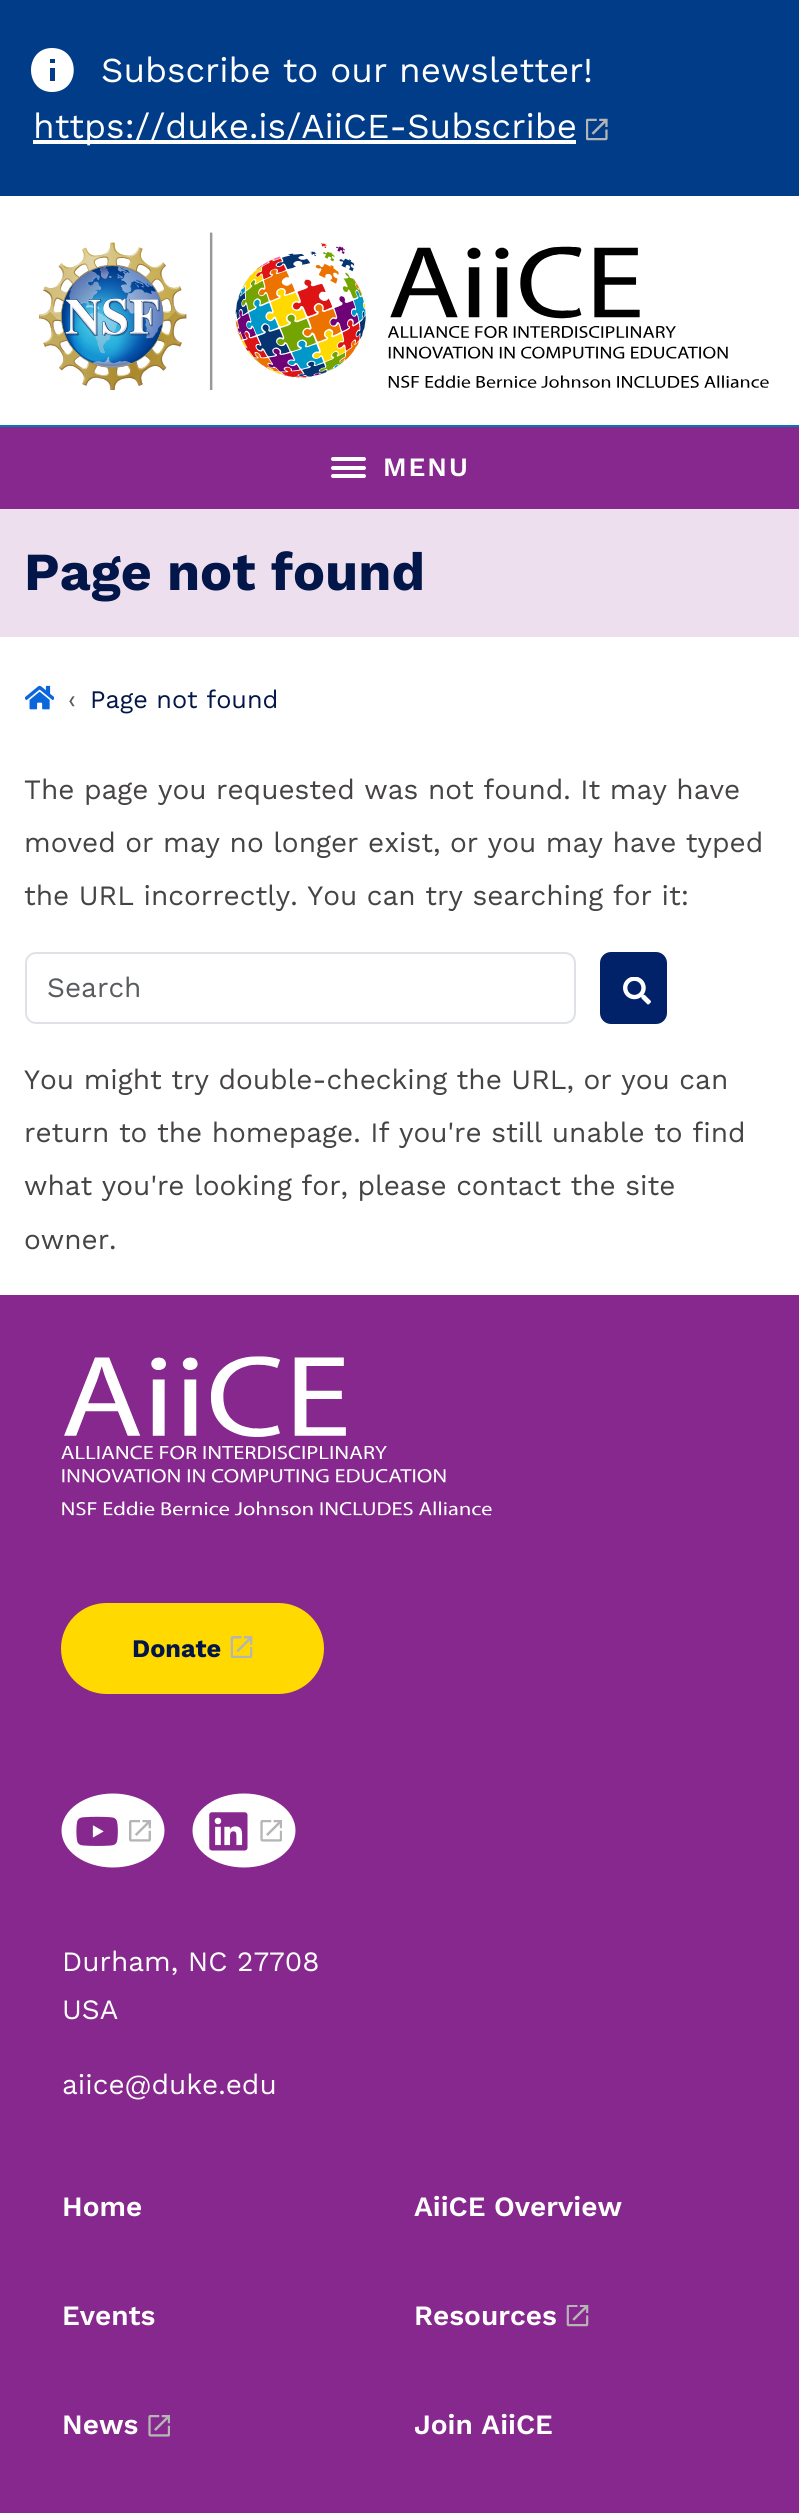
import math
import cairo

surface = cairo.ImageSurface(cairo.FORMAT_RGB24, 799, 2513)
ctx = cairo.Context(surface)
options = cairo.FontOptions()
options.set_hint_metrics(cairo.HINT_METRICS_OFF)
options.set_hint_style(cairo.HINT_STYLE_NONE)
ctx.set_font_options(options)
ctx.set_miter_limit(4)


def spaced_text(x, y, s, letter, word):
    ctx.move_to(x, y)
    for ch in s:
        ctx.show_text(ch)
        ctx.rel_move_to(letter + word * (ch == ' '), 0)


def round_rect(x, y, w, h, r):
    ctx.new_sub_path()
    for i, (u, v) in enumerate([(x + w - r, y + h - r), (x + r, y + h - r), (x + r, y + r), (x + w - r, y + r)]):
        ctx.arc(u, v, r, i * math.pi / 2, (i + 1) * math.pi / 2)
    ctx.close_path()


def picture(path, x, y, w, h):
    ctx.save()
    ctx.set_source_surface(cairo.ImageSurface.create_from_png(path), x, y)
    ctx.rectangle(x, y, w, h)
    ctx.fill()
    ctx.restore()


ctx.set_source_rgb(1, 1, 1)
ctx.paint()
ctx.set_source_rgb(0, 0.235, 0.533)
ctx.rectangle(0, 0, 799, 196)
ctx.fill()
ctx.set_source_rgb(1, 1, 1)
ctx.new_path()
ctx.move_to(52, 48)
ctx.curve_to(24, 48, 24, 92, 52, 92)
ctx.curve_to(81, 92, 81, 48, 52, 48)
ctx.close_path()
ctx.move_to(55, 81)
ctx.line_to(50, 81)
ctx.line_to(50, 68)
ctx.line_to(55, 68)
ctx.close_path()
ctx.move_to(55, 63)
ctx.line_to(50, 63)
ctx.line_to(50, 59)
ctx.line_to(55, 59)
ctx.close_path()
ctx.fill()
ctx.select_font_face("Work Sans")
ctx.set_font_size(35)
ctx.move_to(101, 82)
ctx.show_text("Subscribe to our newsletter!")
ctx.rectangle(33, 140, 543, 4)
ctx.fill()
ctx.move_to(33, 138)
ctx.show_text("https://duke.is/AiiCE-Subscribe")
picture("img1.png", 586, 118, 22, 23)
picture("img2.png", 39, 232, 730, 158)
ctx.set_source_rgb(0.529, 0.157, 0.557)
ctx.rectangle(0, 427, 799, 82)
ctx.fill()
ctx.set_source_rgb(0.02, 0.467, 0.694)
ctx.rectangle(0, 425, 799, 2)
ctx.fill()
ctx.set_source_rgb(1, 1, 1)
round_rect(331, 466, 35, 4, 2)
ctx.fill()
round_rect(331, 457, 35, 4, 2)
ctx.fill()
round_rect(331, 474, 35, 4, 2)
ctx.fill()
ctx.select_font_face("Work Sans SemiBold")
ctx.set_font_size(26.5)
spaced_text(383, 476, "MENU", 2, 0)
ctx.set_source_rgb(0.929, 0.875, 0.933)
ctx.rectangle(0, 509, 799, 128)
ctx.fill()
ctx.select_font_face("Work Sans", cairo.FONT_SLANT_NORMAL, cairo.FONT_WEIGHT_BOLD)
ctx.set_font_size(53.5)
ctx.set_source_rgb(0.012, 0.086, 0.286)
ctx.move_to(24, 590)
ctx.show_text("Page not found")
picture("img3.png", 25, 685, 29, 25)
ctx.select_font_face("Work Sans")
ctx.set_font_size(25.25)
ctx.set_source_rgb(0.349, 0.361, 0.373)
ctx.move_to(68, 708)
ctx.show_text("‹")
ctx.set_source_rgb(0.012, 0.086, 0.286)
ctx.move_to(90, 708)
ctx.show_text("Page not found")
ctx.set_font_size(28)
ctx.set_source_rgb(0.275, 0.263, 0.263)
ctx.move_to(24, 799)
ctx.show_text("The page you requested was not found. It may have")
ctx.move_to(24, 852)
ctx.show_text("moved or may no longer exist, or you may have typed")
ctx.move_to(24, 905)
ctx.show_text("the URL incorrectly. You can try searching for it:")
round_rect(26, 953, 549, 70, 10)
ctx.set_source_rgb(0.871, 0.886, 0.902)
ctx.stroke()
ctx.set_source_rgb(0.349, 0.361, 0.373)
ctx.move_to(47, 997)
ctx.show_text("Search")
ctx.set_source_rgb(0.004, 0.129, 0.412)
round_rect(601, 953, 65, 70, 10)
ctx.fill_preserve()
ctx.stroke()
picture("img4.png", 623, 977, 28, 28)
ctx.set_source_rgb(0.275, 0.263, 0.263)
ctx.move_to(24, 1089)
ctx.show_text("You might try double-checking the URL, or you can")
ctx.move_to(24, 1142)
ctx.show_text("return to the homepage. If you're still unable to find")
ctx.move_to(24, 1195)
ctx.show_text("what you're looking for, please contact the site")
ctx.move_to(24, 1249)
ctx.show_text("owner.")
ctx.set_source_rgb(0.529, 0.157, 0.557)
ctx.rectangle(0, 1295, 799, 1218)
ctx.fill()
picture("img5.png", 61, 1356, 431, 160)
ctx.set_source_rgb(1, 0.851, 0)
round_rect(61, 1603, 263, 91, 45.5)
ctx.fill()
ctx.select_font_face("Work Sans", cairo.FONT_SLANT_NORMAL, cairo.FONT_WEIGHT_BOLD)
ctx.set_font_size(25.25)
ctx.set_source_rgb(0.012, 0.086, 0.286)
ctx.move_to(132, 1657)
ctx.show_text("Donate")
picture("img6.png", 230, 1636, 23, 22)
ctx.set_source_rgb(1, 1, 1)
ctx.new_path()
ctx.move_to(113, 1793.5)
ctx.curve_to(141.5, 1793.5, 164.5, 1810, 164.5, 1830.5)
ctx.curve_to(164.5, 1851, 141.5, 1867.5, 113, 1867.5)
ctx.curve_to(84.5, 1867.5, 61.5, 1851, 61.5, 1830.5)
ctx.curve_to(61.5, 1810, 84.5, 1793.5, 113, 1793.5)
ctx.close_path()
ctx.fill()
picture("img7.png", 76, 1816, 42, 30)
picture("img8.png", 129, 1820, 22, 22)
ctx.new_path()
ctx.move_to(244, 1793.5)
ctx.curve_to(272.5, 1793.5, 295.5, 1810, 295.5, 1830.5)
ctx.curve_to(295.5, 1851, 272.5, 1867.5, 244, 1867.5)
ctx.curve_to(215.5, 1867.5, 192.5, 1851, 192.5, 1830.5)
ctx.curve_to(192.5, 1810, 215.5, 1793.5, 244, 1793.5)
ctx.close_path()
ctx.fill()
picture("img9.png", 209, 1812, 39, 39)
picture("img10.png", 260, 1820, 22, 22)
ctx.select_font_face("Work Sans")
ctx.set_font_size(28)
ctx.move_to(62, 1971)
ctx.show_text("Durham, NC 27708")
ctx.move_to(62, 2019)
ctx.show_text("USA")
ctx.move_to(62, 2094)
ctx.show_text("aiice@duke.edu")
ctx.select_font_face("Work Sans SemiBold")
ctx.move_to(62, 2216)
ctx.show_text("Home")
ctx.move_to(414, 2216)
ctx.show_text("AiiCE Overview")
ctx.move_to(62, 2325)
ctx.show_text("Events")
ctx.move_to(414, 2325)
ctx.show_text("Resources")
picture("img11.png", 566, 2305, 23, 22)
ctx.move_to(62, 2434)
ctx.show_text("News")
picture("img12.png", 148, 2415, 22, 22)
ctx.move_to(414, 2434)
ctx.show_text("Join AiiCE")
surface.write_to_png("page.png")
